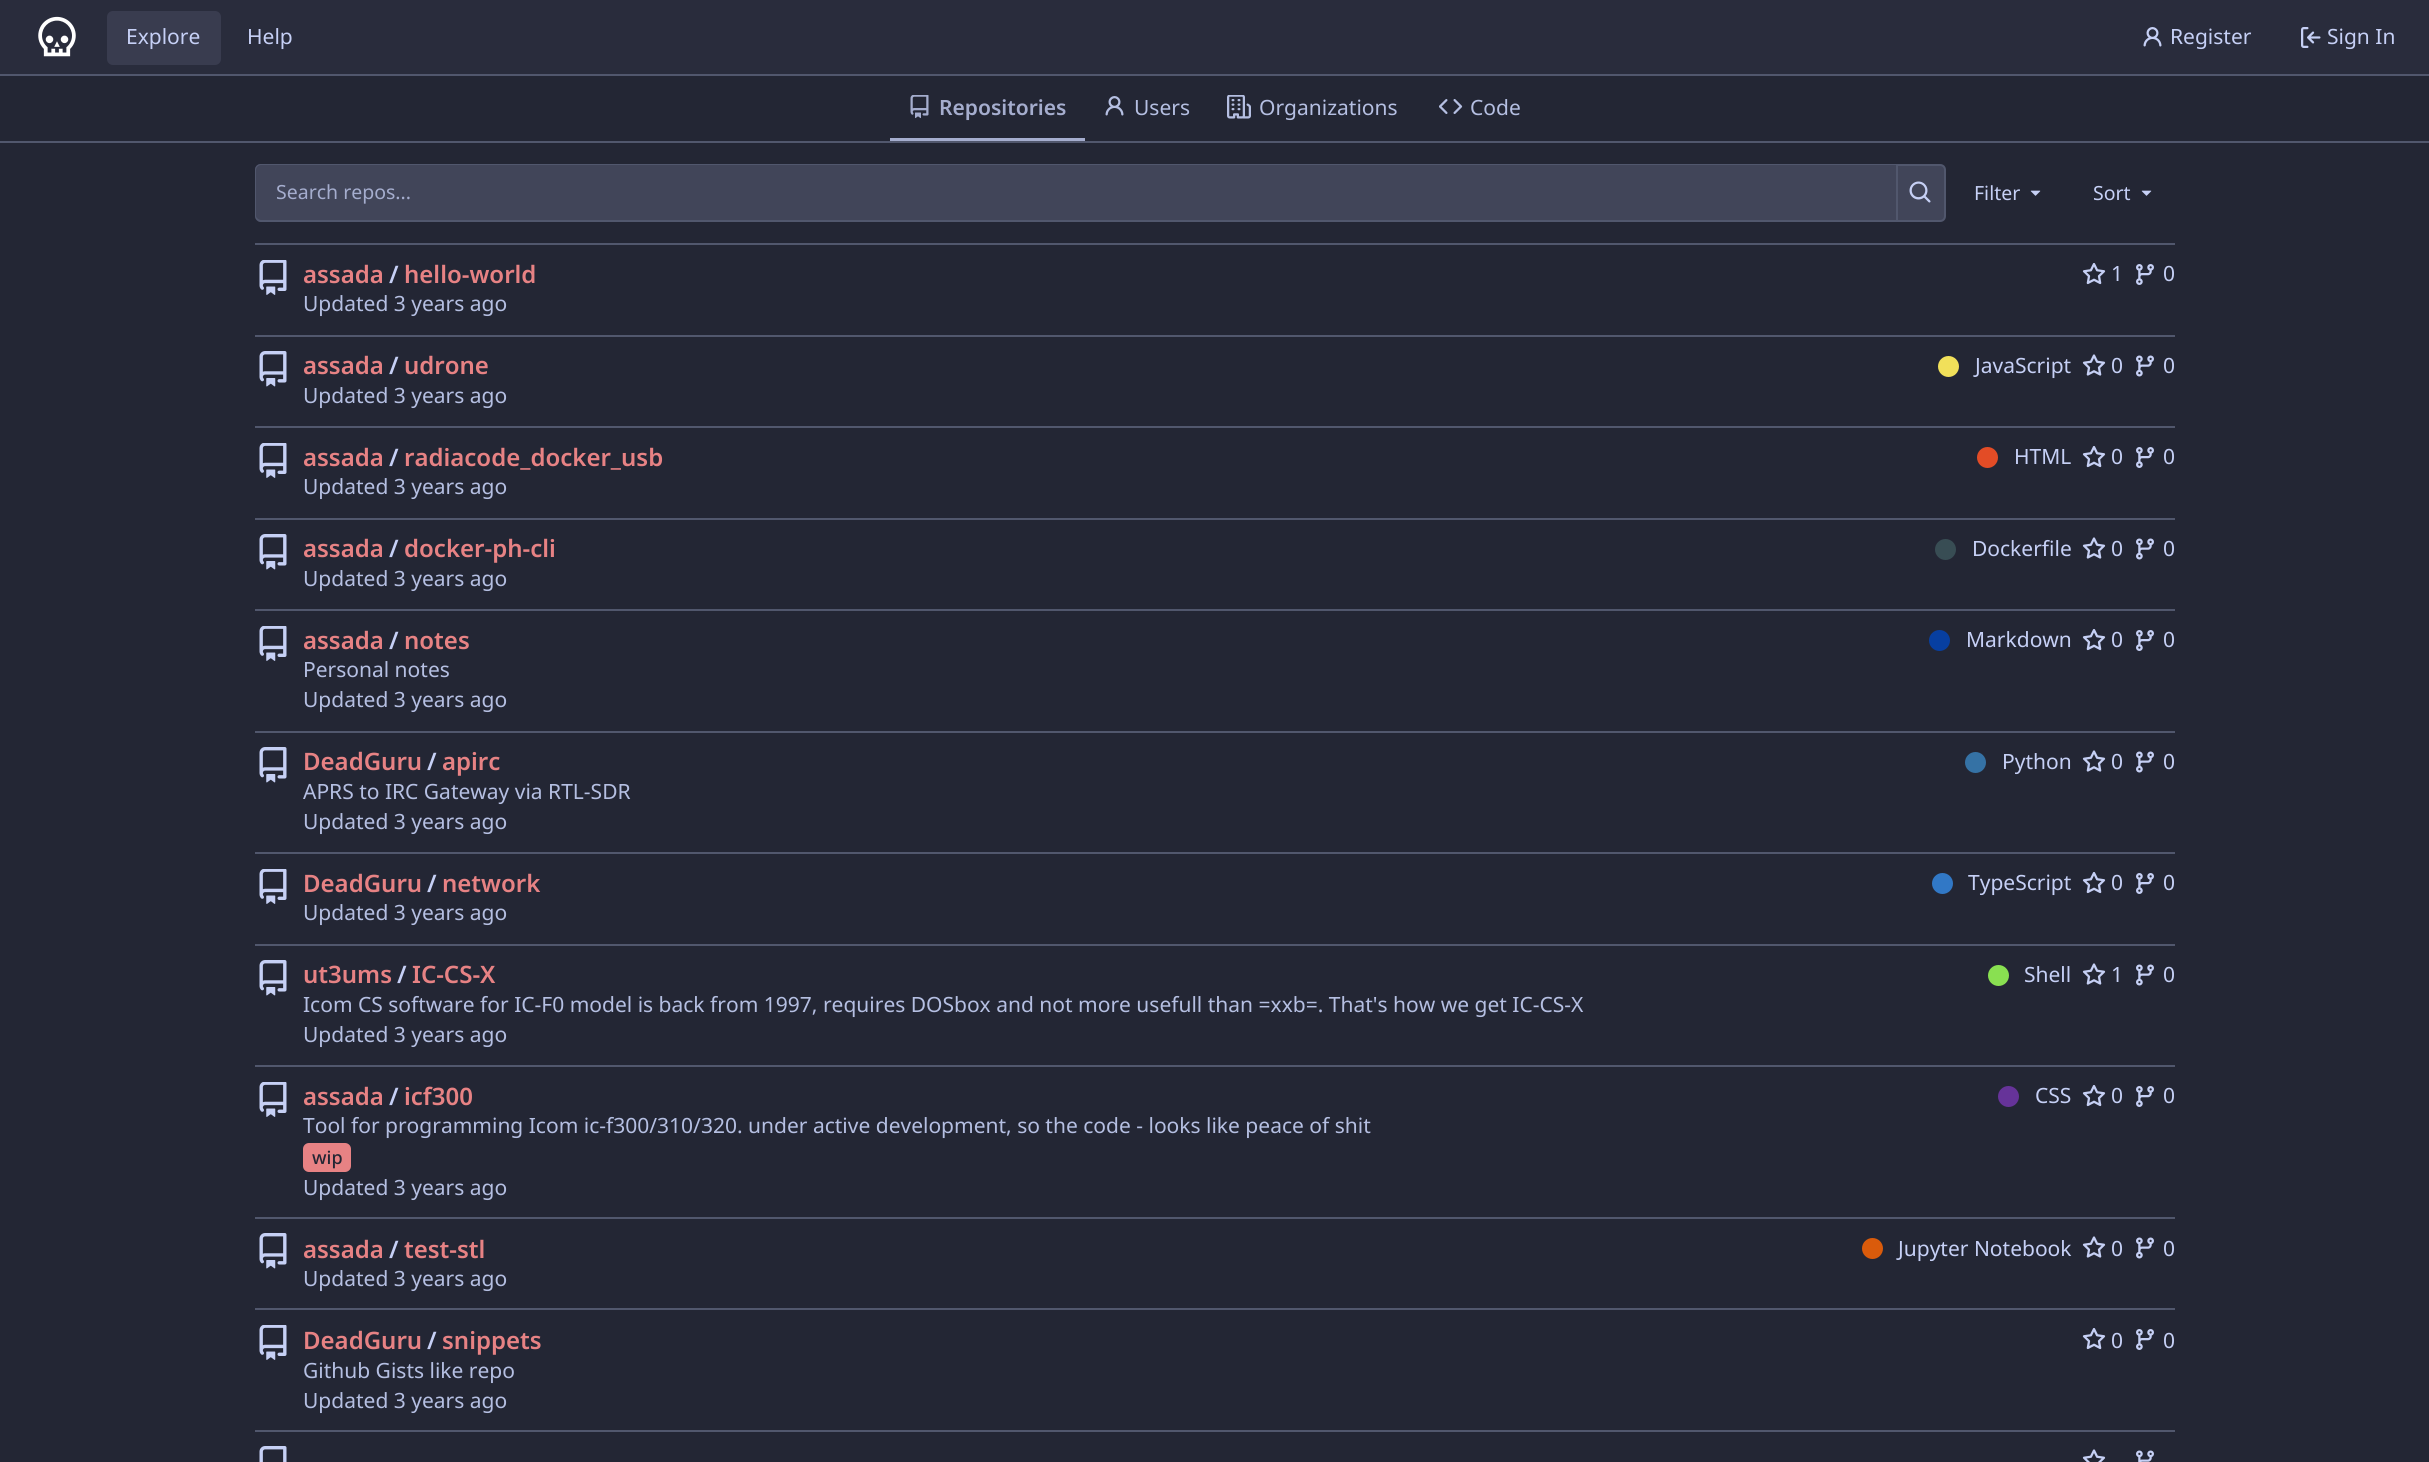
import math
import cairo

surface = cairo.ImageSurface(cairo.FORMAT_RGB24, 2429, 1462)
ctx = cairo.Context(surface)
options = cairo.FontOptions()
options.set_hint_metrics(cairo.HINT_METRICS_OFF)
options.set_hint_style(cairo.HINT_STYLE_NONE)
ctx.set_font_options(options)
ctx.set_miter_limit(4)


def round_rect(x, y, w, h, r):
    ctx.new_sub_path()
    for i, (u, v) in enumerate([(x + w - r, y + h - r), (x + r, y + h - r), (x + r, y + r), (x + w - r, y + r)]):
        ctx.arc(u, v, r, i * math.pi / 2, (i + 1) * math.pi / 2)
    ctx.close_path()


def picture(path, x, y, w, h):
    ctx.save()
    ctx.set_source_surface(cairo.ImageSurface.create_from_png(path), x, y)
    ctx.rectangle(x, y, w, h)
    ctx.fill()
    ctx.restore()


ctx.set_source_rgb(0.137, 0.149, 0.204)
ctx.paint()
ctx.set_source_rgb(0.161, 0.173, 0.235)
ctx.rectangle(0, 0, 2429, 74)
ctx.fill()
ctx.set_source_rgb(0.318, 0.341, 0.427)
ctx.rectangle(0, 74, 2429, 2)
ctx.fill()
picture("img1.png", 38, 16, 38, 41)
ctx.set_source_rgb(0.224, 0.235, 0.31)
round_rect(107, 11, 114, 54, 6)
ctx.fill()
ctx.select_font_face("Noto Sans")
ctx.set_font_size(21)
ctx.set_source_rgb(0.776, 0.816, 0.961)
ctx.move_to(126, 44)
ctx.show_text("Explore")
ctx.move_to(247, 44)
ctx.show_text("Help")
picture("img2.png", 2143, 27, 19, 20)
ctx.move_to(2170, 44)
ctx.show_text("Register")
picture("img3.png", 2301, 27, 20, 21)
ctx.move_to(2327, 44)
ctx.show_text("Sign In")
ctx.set_source_rgb(0.318, 0.341, 0.427)
ctx.rectangle(0, 141, 2429, 2)
ctx.fill()
ctx.set_source_rgb(0.647, 0.678, 0.808)
ctx.rectangle(890, 138, 195, 3)
ctx.fill()
picture("img4.png", 910, 95, 19, 24)
ctx.select_font_face("Noto Sans SemiBold")
ctx.move_to(939, 115)
ctx.show_text("Repositories")
picture("img5.png", 1105, 96, 19, 20)
ctx.select_font_face("Noto Sans")
ctx.set_source_rgb(0.71, 0.749, 0.886)
ctx.move_to(1134, 115)
ctx.show_text("Users")
picture("img6.png", 1227, 95, 24, 24)
ctx.move_to(1259, 115)
ctx.show_text("Organizations")
picture("img7.png", 1439, 99, 24, 15)
ctx.move_to(1470, 115)
ctx.show_text("Code")
ctx.set_source_rgb(0.255, 0.271, 0.349)
ctx.new_path()
ctx.move_to(261, 164)
ctx.line_to(1896, 164)
ctx.line_to(1896, 222)
ctx.line_to(261, 222)
ctx.curve_to(257.5, 222, 255, 219.5, 255, 216)
ctx.line_to(255, 170)
ctx.curve_to(255, 166.5, 257.5, 164, 261, 164)
ctx.close_path()
ctx.fill()
ctx.set_source_rgb(0.318, 0.341, 0.427)
ctx.set_fill_rule(cairo.FILL_RULE_EVEN_ODD)
ctx.new_path()
ctx.move_to(261, 164)
ctx.line_to(1896, 164)
ctx.line_to(1896, 222)
ctx.line_to(261, 222)
ctx.curve_to(258, 222, 255, 219, 255, 216)
ctx.line_to(255, 170)
ctx.curve_to(255, 166, 258, 164, 261, 164)
ctx.close_path()
ctx.move_to(261, 165)
ctx.line_to(1896, 165)
ctx.line_to(1896, 220)
ctx.line_to(261, 220)
ctx.curve_to(259, 220, 256, 218, 256, 216)
ctx.line_to(256, 170)
ctx.curve_to(256, 167, 259, 165, 261, 165)
ctx.close_path()
ctx.fill()
ctx.set_font_size(19.5)
ctx.set_source_rgb(0.647, 0.678, 0.808)
ctx.move_to(276, 199)
ctx.show_text("Search repos...")
ctx.set_source_rgb(0.255, 0.271, 0.349)
ctx.new_path()
ctx.move_to(1897, 165)
ctx.line_to(1940, 165)
ctx.curve_to(1943, 165, 1945, 167, 1945, 170)
ctx.line_to(1945, 216)
ctx.curve_to(1945, 219, 1943, 221, 1940, 221)
ctx.line_to(1897, 221)
ctx.close_path()
ctx.fill_preserve()
ctx.set_source_rgb(0.318, 0.341, 0.427)
ctx.stroke()
picture("img8.png", 1909, 181, 22, 22)
ctx.set_source_rgb(0.776, 0.816, 0.961)
ctx.move_to(1974, 200)
ctx.show_text("Filter")
picture("img9.png", 2030, 190, 11, 6)
ctx.move_to(2093, 200)
ctx.show_text("Sort")
picture("img9.png", 2141, 190, 11, 6)
ctx.set_source_rgb(0.318, 0.341, 0.427)
ctx.rectangle(255, 243, 1920, 2)
ctx.fill()
picture("img10.png", 259, 260, 28, 35)
ctx.select_font_face("Noto Sans SemiBold")
ctx.set_font_size(24)
ctx.set_source_rgb(0.906, 0.51, 0.518)
ctx.move_to(303, 283)
ctx.show_text("assada")
ctx.set_source_rgb(0.776, 0.816, 0.961)
ctx.move_to(389, 283)
ctx.show_text("/")
ctx.set_source_rgb(0.906, 0.51, 0.518)
ctx.move_to(404, 283)
ctx.show_text("hello-world")
picture("img11.png", 2082, 263, 24, 22)
ctx.select_font_face("Noto Sans")
ctx.set_font_size(21)
ctx.set_source_rgb(0.776, 0.816, 0.961)
ctx.move_to(2111, 281)
ctx.show_text("1")
picture("img12.png", 2136, 264, 18, 21)
ctx.move_to(2163, 281)
ctx.show_text("0")
ctx.set_source_rgb(0.71, 0.749, 0.886)
ctx.move_to(303, 311)
ctx.show_text("Updated 3 years ago")
ctx.set_source_rgb(0.318, 0.341, 0.427)
ctx.rectangle(255, 335, 1920, 2)
ctx.fill()
picture("img13.png", 259, 351, 28, 36)
ctx.select_font_face("Noto Sans SemiBold")
ctx.set_font_size(24)
ctx.set_source_rgb(0.906, 0.51, 0.518)
ctx.move_to(303, 374)
ctx.show_text("assada")
ctx.set_source_rgb(0.776, 0.816, 0.961)
ctx.move_to(389, 374)
ctx.show_text("/")
ctx.set_source_rgb(0.906, 0.51, 0.518)
ctx.move_to(404, 374)
ctx.show_text("udrone")
ctx.set_source_rgb(0.945, 0.878, 0.353)
ctx.new_path()
ctx.arc(1948.5, 366.5, 10.5, 0, 2 * math.pi)
ctx.fill()
ctx.select_font_face("Noto Sans")
ctx.set_font_size(21)
ctx.set_source_rgb(0.776, 0.816, 0.961)
ctx.move_to(1975, 373)
ctx.show_text("JavaScript")
picture("img14.png", 2082, 354, 24, 22)
ctx.move_to(2111, 373)
ctx.show_text("0")
picture("img15.png", 2136, 355, 18, 22)
ctx.move_to(2163, 373)
ctx.show_text("0")
ctx.set_source_rgb(0.71, 0.749, 0.886)
ctx.move_to(303, 403)
ctx.show_text("Updated 3 years ago")
ctx.set_source_rgb(0.318, 0.341, 0.427)
ctx.rectangle(255, 426, 1920, 2)
ctx.fill()
picture("img10.png", 259, 443, 28, 35)
ctx.select_font_face("Noto Sans SemiBold")
ctx.set_font_size(24)
ctx.set_source_rgb(0.906, 0.51, 0.518)
ctx.move_to(303, 466)
ctx.show_text("assada")
ctx.set_source_rgb(0.776, 0.816, 0.961)
ctx.move_to(389, 466)
ctx.show_text("/")
ctx.set_source_rgb(0.906, 0.51, 0.518)
ctx.move_to(404, 466)
ctx.show_text("radiacode_docker_usb")
ctx.set_source_rgb(0.89, 0.298, 0.149)
ctx.new_path()
ctx.arc(1987.5, 457.5, 10.5, 0, 2 * math.pi)
ctx.fill()
ctx.select_font_face("Noto Sans")
ctx.set_font_size(21)
ctx.set_source_rgb(0.776, 0.816, 0.961)
ctx.move_to(2014, 464)
ctx.show_text("HTML")
picture("img11.png", 2082, 446, 24, 22)
ctx.move_to(2111, 464)
ctx.show_text("0")
picture("img12.png", 2136, 447, 18, 21)
ctx.move_to(2163, 464)
ctx.show_text("0")
ctx.set_source_rgb(0.71, 0.749, 0.886)
ctx.move_to(303, 494)
ctx.show_text("Updated 3 years ago")
ctx.set_source_rgb(0.318, 0.341, 0.427)
ctx.rectangle(255, 518, 1920, 2)
ctx.fill()
picture("img13.png", 259, 534, 28, 36)
ctx.select_font_face("Noto Sans SemiBold")
ctx.set_font_size(24)
ctx.set_source_rgb(0.906, 0.51, 0.518)
ctx.move_to(303, 557)
ctx.show_text("assada")
ctx.set_source_rgb(0.776, 0.816, 0.961)
ctx.move_to(389, 557)
ctx.show_text("/")
ctx.set_source_rgb(0.906, 0.51, 0.518)
ctx.move_to(404, 557)
ctx.show_text("docker-ph-cli")
ctx.set_source_rgb(0.22, 0.302, 0.329)
ctx.new_path()
ctx.arc(1945.5, 549.5, 10.5, 0, 2 * math.pi)
ctx.fill()
ctx.select_font_face("Noto Sans")
ctx.set_font_size(21)
ctx.set_source_rgb(0.776, 0.816, 0.961)
ctx.move_to(1972, 556)
ctx.show_text("Dockerfile")
picture("img14.png", 2082, 537, 24, 22)
ctx.move_to(2111, 556)
ctx.show_text("0")
picture("img15.png", 2136, 538, 18, 22)
ctx.move_to(2163, 556)
ctx.show_text("0")
ctx.set_source_rgb(0.71, 0.749, 0.886)
ctx.move_to(303, 586)
ctx.show_text("Updated 3 years ago")
ctx.set_source_rgb(0.318, 0.341, 0.427)
ctx.rectangle(255, 609, 1920, 2)
ctx.fill()
picture("img10.png", 259, 626, 28, 35)
ctx.select_font_face("Noto Sans SemiBold")
ctx.set_font_size(24)
ctx.set_source_rgb(0.906, 0.51, 0.518)
ctx.move_to(303, 649)
ctx.show_text("assada")
ctx.set_source_rgb(0.776, 0.816, 0.961)
ctx.move_to(389, 649)
ctx.show_text("/")
ctx.set_source_rgb(0.906, 0.51, 0.518)
ctx.move_to(404, 649)
ctx.show_text("notes")
ctx.set_source_rgb(0.031, 0.247, 0.631)
ctx.new_path()
ctx.arc(1939.5, 640.5, 10.5, 0, 2 * math.pi)
ctx.fill()
ctx.select_font_face("Noto Sans")
ctx.set_font_size(21)
ctx.set_source_rgb(0.776, 0.816, 0.961)
ctx.move_to(1966, 647)
ctx.show_text("Markdown")
picture("img11.png", 2082, 629, 24, 22)
ctx.move_to(2111, 647)
ctx.show_text("0")
picture("img12.png", 2136, 630, 18, 21)
ctx.move_to(2163, 647)
ctx.show_text("0")
ctx.set_source_rgb(0.71, 0.749, 0.886)
ctx.move_to(303, 677)
ctx.show_text("Personal notes")
ctx.move_to(303, 707)
ctx.show_text("Updated 3 years ago")
ctx.set_source_rgb(0.318, 0.341, 0.427)
ctx.rectangle(255, 731, 1920, 2)
ctx.fill()
picture("img13.png", 259, 747, 28, 36)
ctx.select_font_face("Noto Sans SemiBold")
ctx.set_font_size(24)
ctx.set_source_rgb(0.906, 0.51, 0.518)
ctx.move_to(303, 770)
ctx.show_text("DeadGuru")
ctx.set_source_rgb(0.776, 0.816, 0.961)
ctx.move_to(427, 770)
ctx.show_text("/")
ctx.set_source_rgb(0.906, 0.51, 0.518)
ctx.move_to(442, 770)
ctx.show_text("apirc")
ctx.set_source_rgb(0.208, 0.447, 0.647)
ctx.new_path()
ctx.arc(1975.5, 762.5, 10.5, 0, 2 * math.pi)
ctx.fill()
ctx.select_font_face("Noto Sans")
ctx.set_font_size(21)
ctx.set_source_rgb(0.776, 0.816, 0.961)
ctx.move_to(2002, 769)
ctx.show_text("Python")
picture("img14.png", 2082, 750, 24, 22)
ctx.move_to(2111, 769)
ctx.show_text("0")
picture("img15.png", 2136, 751, 18, 22)
ctx.move_to(2163, 769)
ctx.show_text("0")
ctx.set_source_rgb(0.71, 0.749, 0.886)
ctx.move_to(303, 799)
ctx.show_text("APRS to IRC Gateway via RTL-SDR")
ctx.move_to(303, 829)
ctx.show_text("Updated 3 years ago")
ctx.set_source_rgb(0.318, 0.341, 0.427)
ctx.rectangle(255, 852, 1920, 2)
ctx.fill()
picture("img10.png", 259, 869, 28, 35)
ctx.select_font_face("Noto Sans SemiBold")
ctx.set_font_size(24)
ctx.set_source_rgb(0.906, 0.51, 0.518)
ctx.move_to(303, 892)
ctx.show_text("DeadGuru")
ctx.set_source_rgb(0.776, 0.816, 0.961)
ctx.move_to(427, 892)
ctx.show_text("/")
ctx.set_source_rgb(0.906, 0.51, 0.518)
ctx.move_to(442, 892)
ctx.show_text("network")
ctx.set_source_rgb(0.192, 0.471, 0.776)
ctx.new_path()
ctx.arc(1942.5, 883.5, 10.5, 0, 2 * math.pi)
ctx.fill()
ctx.select_font_face("Noto Sans")
ctx.set_font_size(21)
ctx.set_source_rgb(0.776, 0.816, 0.961)
ctx.move_to(1968, 890)
ctx.show_text("TypeScript")
picture("img11.png", 2082, 872, 24, 22)
ctx.move_to(2111, 890)
ctx.show_text("0")
picture("img12.png", 2136, 873, 18, 21)
ctx.move_to(2163, 890)
ctx.show_text("0")
ctx.set_source_rgb(0.71, 0.749, 0.886)
ctx.move_to(303, 920)
ctx.show_text("Updated 3 years ago")
ctx.set_source_rgb(0.318, 0.341, 0.427)
ctx.rectangle(255, 944, 1920, 2)
ctx.fill()
picture("img13.png", 259, 960, 28, 36)
ctx.select_font_face("Noto Sans SemiBold")
ctx.set_font_size(24)
ctx.set_source_rgb(0.906, 0.51, 0.518)
ctx.move_to(303, 983)
ctx.show_text("ut3ums")
ctx.set_source_rgb(0.776, 0.816, 0.961)
ctx.move_to(397, 983)
ctx.show_text("/")
ctx.set_source_rgb(0.906, 0.51, 0.518)
ctx.move_to(412, 983)
ctx.show_text("IC-CS-X")
ctx.set_source_rgb(0.537, 0.878, 0.318)
ctx.new_path()
ctx.arc(1998.5, 975.5, 10.5, 0, 2 * math.pi)
ctx.fill()
ctx.select_font_face("Noto Sans")
ctx.set_font_size(21)
ctx.set_source_rgb(0.776, 0.816, 0.961)
ctx.move_to(2024, 982)
ctx.show_text("Shell")
picture("img14.png", 2082, 963, 24, 22)
ctx.move_to(2111, 982)
ctx.show_text("1")
picture("img15.png", 2136, 964, 18, 22)
ctx.move_to(2163, 982)
ctx.show_text("0")
ctx.set_source_rgb(0.71, 0.749, 0.886)
ctx.move_to(303, 1012)
ctx.show_text("Icom CS software for IC-F0 model is back from 1997, requires DOSbox and not more usefull than =xxb=. That's how we get IC-CS-X")
ctx.move_to(303, 1042)
ctx.show_text("Updated 3 years ago")
ctx.set_source_rgb(0.318, 0.341, 0.427)
ctx.rectangle(255, 1065, 1920, 2)
ctx.fill()
picture("img10.png", 259, 1082, 28, 35)
ctx.select_font_face("Noto Sans SemiBold")
ctx.set_font_size(24)
ctx.set_source_rgb(0.906, 0.51, 0.518)
ctx.move_to(303, 1105)
ctx.show_text("assada")
ctx.set_source_rgb(0.776, 0.816, 0.961)
ctx.move_to(389, 1105)
ctx.show_text("/")
ctx.set_source_rgb(0.906, 0.51, 0.518)
ctx.move_to(404, 1105)
ctx.show_text("icf300")
ctx.set_source_rgb(0.4, 0.2, 0.6)
ctx.new_path()
ctx.arc(2008.5, 1096.5, 10.5, 0, 2 * math.pi)
ctx.fill()
ctx.select_font_face("Noto Sans")
ctx.set_font_size(21)
ctx.set_source_rgb(0.776, 0.816, 0.961)
ctx.move_to(2035, 1103)
ctx.show_text("CSS")
picture("img11.png", 2082, 1085, 24, 22)
ctx.move_to(2111, 1103)
ctx.show_text("0")
picture("img12.png", 2136, 1086, 18, 21)
ctx.move_to(2163, 1103)
ctx.show_text("0")
ctx.set_source_rgb(0.71, 0.749, 0.886)
ctx.move_to(303, 1133)
ctx.show_text("Tool for programming Icom ic-f300/310/320. under active development, so the code - looks like peace of shit")
ctx.set_source_rgb(0.906, 0.51, 0.518)
round_rect(303, 1143, 48, 29, 6)
ctx.fill()
ctx.select_font_face("Noto Sans Medium")
ctx.set_font_size(18)
ctx.set_source_rgb(0.137, 0.149, 0.204)
ctx.move_to(312, 1164)
ctx.show_text("wip")
ctx.select_font_face("Noto Sans")
ctx.set_font_size(21)
ctx.set_source_rgb(0.71, 0.749, 0.886)
ctx.move_to(303, 1195)
ctx.show_text("Updated 3 years ago")
ctx.set_source_rgb(0.318, 0.341, 0.427)
ctx.rectangle(255, 1217, 1920, 2)
ctx.fill()
picture("img13.png", 259, 1233, 28, 36)
ctx.select_font_face("Noto Sans SemiBold")
ctx.set_font_size(24)
ctx.set_source_rgb(0.906, 0.51, 0.518)
ctx.move_to(303, 1258)
ctx.show_text("assada")
ctx.set_source_rgb(0.776, 0.816, 0.961)
ctx.move_to(389, 1258)
ctx.show_text("/")
ctx.set_source_rgb(0.906, 0.51, 0.518)
ctx.move_to(404, 1258)
ctx.show_text("test-stl")
ctx.set_source_rgb(0.855, 0.357, 0.043)
ctx.new_path()
ctx.arc(1872.5, 1248.5, 10.5, 0, 2 * math.pi)
ctx.fill()
ctx.select_font_face("Noto Sans")
ctx.set_font_size(21)
ctx.set_source_rgb(0.776, 0.816, 0.961)
ctx.move_to(1898, 1256)
ctx.show_text("Jupyter Notebook")
picture("img14.png", 2082, 1236, 24, 22)
ctx.move_to(2111, 1256)
ctx.show_text("0")
picture("img15.png", 2136, 1237, 18, 22)
ctx.move_to(2163, 1256)
ctx.show_text("0")
ctx.set_source_rgb(0.71, 0.749, 0.886)
ctx.move_to(303, 1286)
ctx.show_text("Updated 3 years ago")
ctx.set_source_rgb(0.318, 0.341, 0.427)
ctx.rectangle(255, 1308, 1920, 2)
ctx.fill()
picture("img10.png", 259, 1325, 28, 35)
ctx.select_font_face("Noto Sans SemiBold")
ctx.set_font_size(24)
ctx.set_source_rgb(0.906, 0.51, 0.518)
ctx.move_to(303, 1349)
ctx.show_text("DeadGuru")
ctx.set_source_rgb(0.776, 0.816, 0.961)
ctx.move_to(427, 1349)
ctx.show_text("/")
ctx.set_source_rgb(0.906, 0.51, 0.518)
ctx.move_to(442, 1349)
ctx.show_text("snippets")
picture("img11.png", 2082, 1328, 24, 22)
ctx.select_font_face("Noto Sans")
ctx.set_font_size(21)
ctx.set_source_rgb(0.776, 0.816, 0.961)
ctx.move_to(2111, 1348)
ctx.show_text("0")
picture("img12.png", 2136, 1329, 18, 21)
ctx.move_to(2163, 1348)
ctx.show_text("0")
ctx.set_source_rgb(0.71, 0.749, 0.886)
ctx.move_to(303, 1378)
ctx.show_text("Github Gists like repo")
ctx.move_to(303, 1408)
ctx.show_text("Updated 3 years ago")
ctx.set_source_rgb(0.318, 0.341, 0.427)
ctx.rectangle(255, 1430, 1920, 2)
ctx.fill()
picture("img16.png", 259, 1446, 28, 16)
picture("img17.png", 2082, 1449, 24, 13)
picture("img18.png", 2136, 1450, 18, 12)
surface.write_to_png("page.png")
